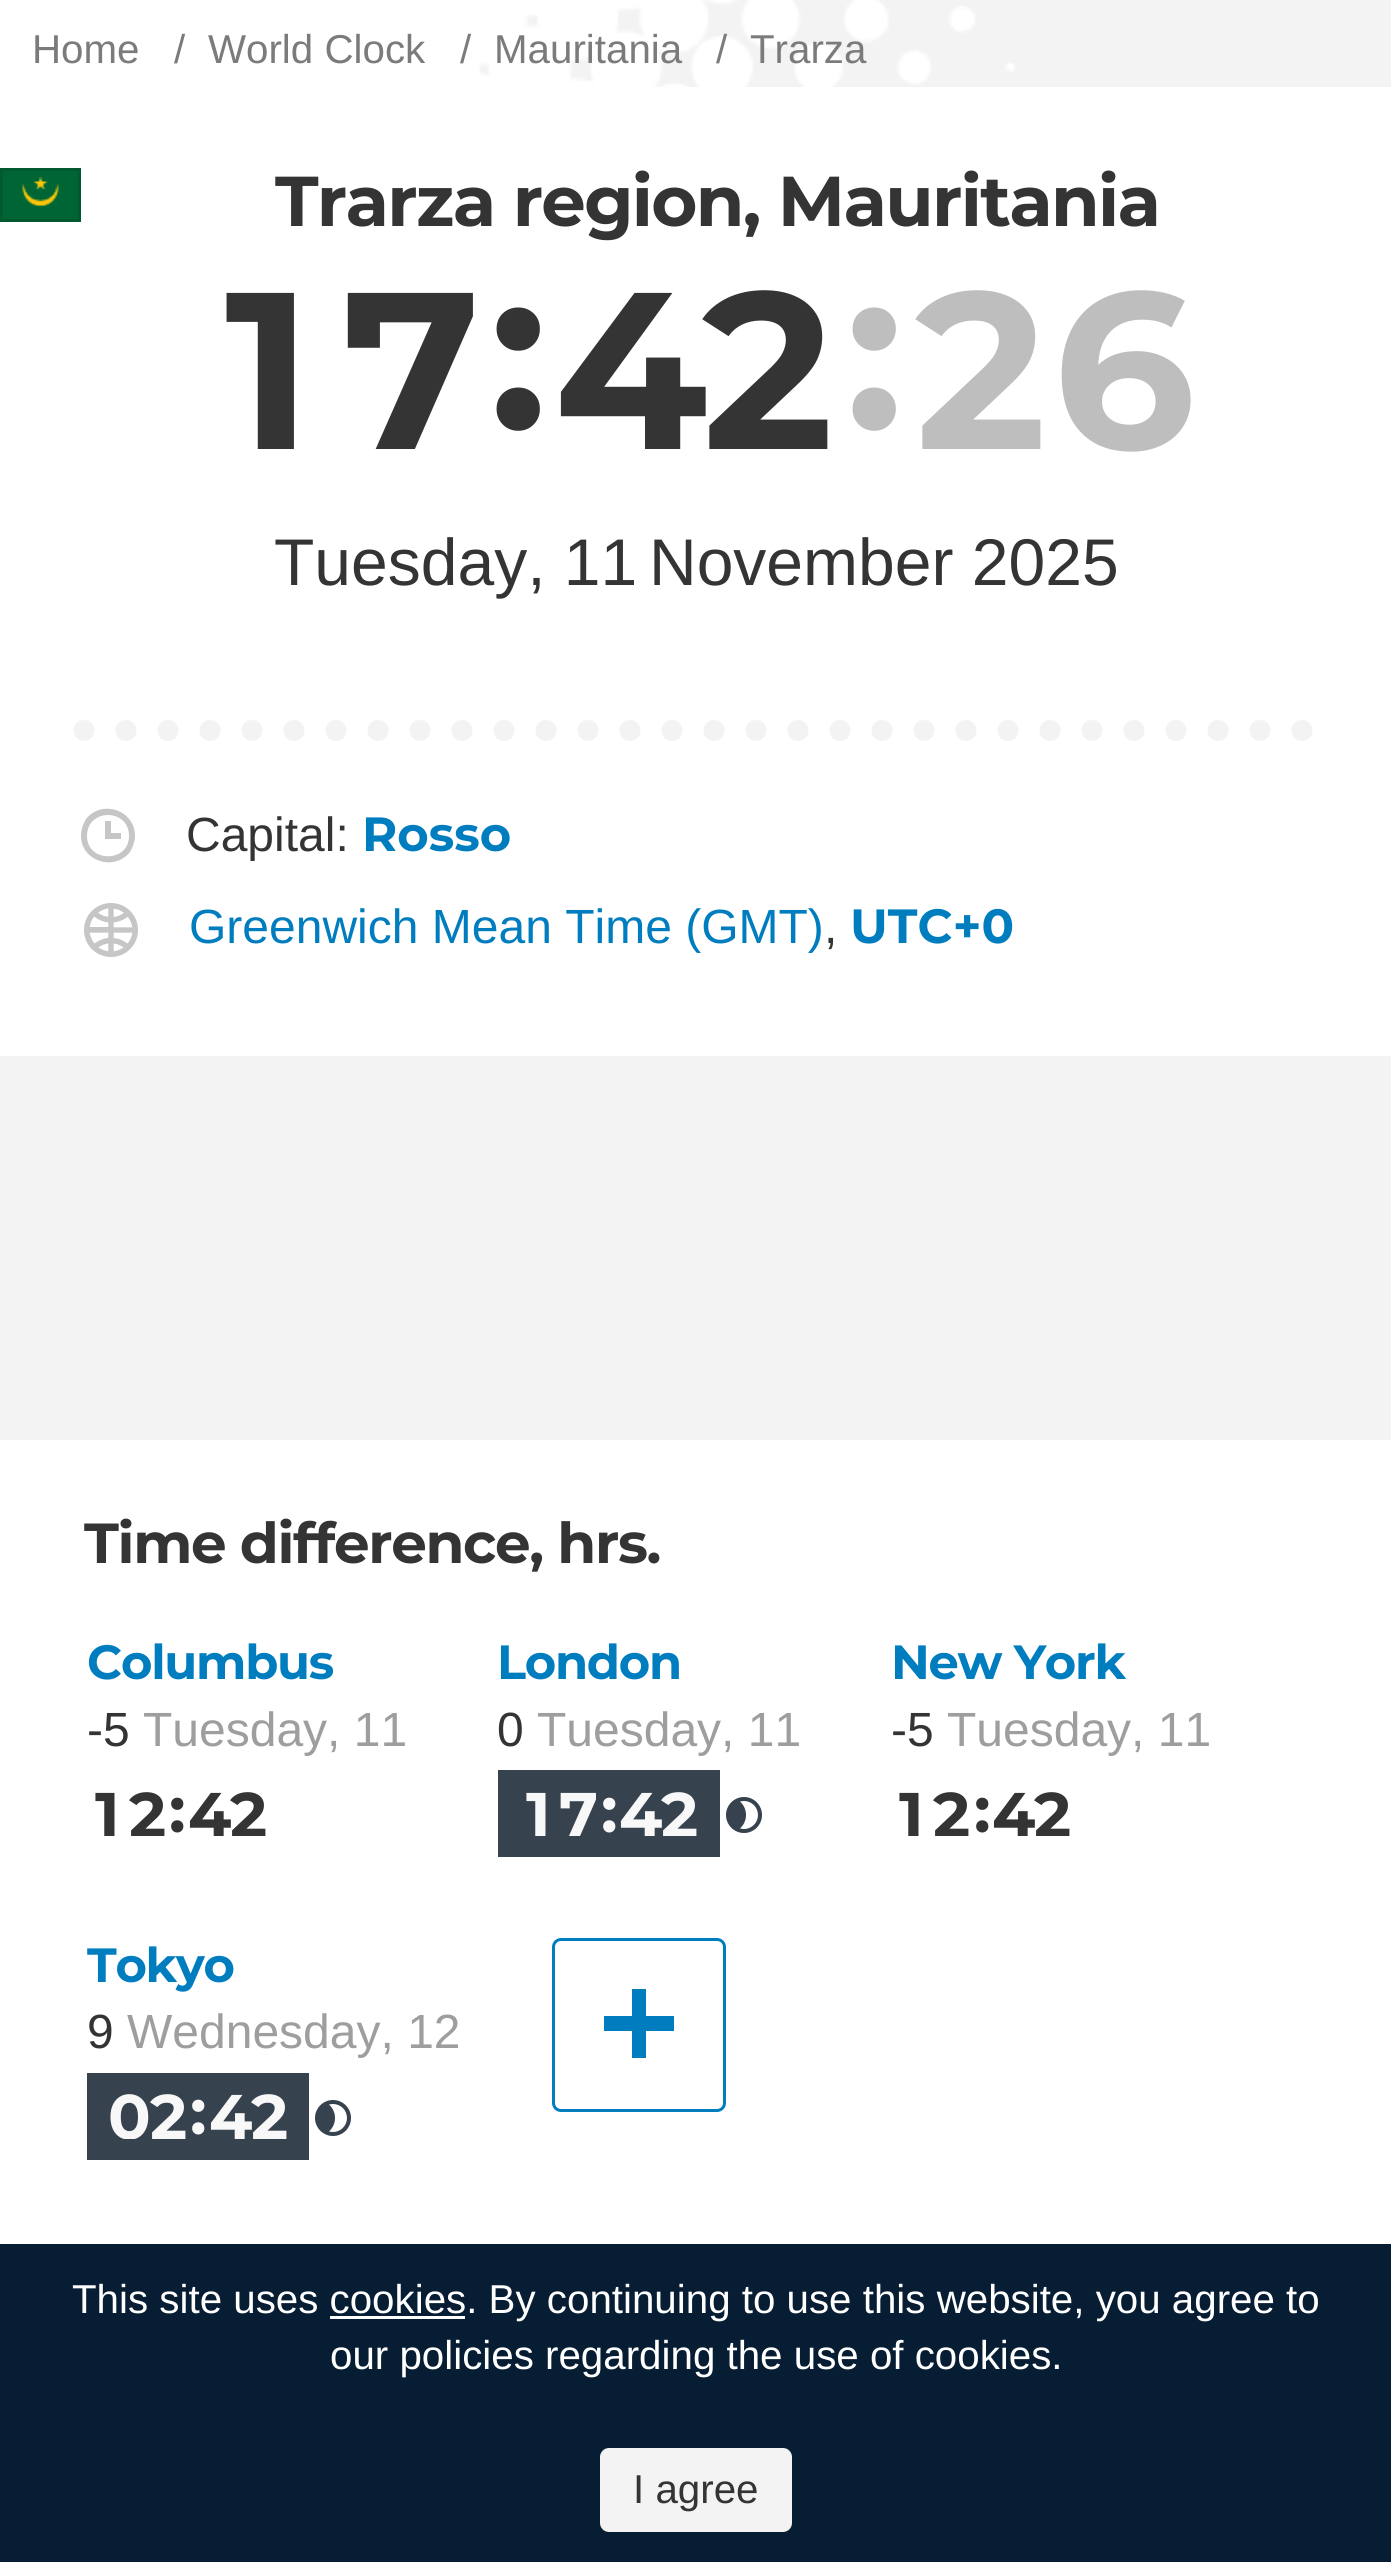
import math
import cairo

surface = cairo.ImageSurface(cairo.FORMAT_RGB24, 1391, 2562)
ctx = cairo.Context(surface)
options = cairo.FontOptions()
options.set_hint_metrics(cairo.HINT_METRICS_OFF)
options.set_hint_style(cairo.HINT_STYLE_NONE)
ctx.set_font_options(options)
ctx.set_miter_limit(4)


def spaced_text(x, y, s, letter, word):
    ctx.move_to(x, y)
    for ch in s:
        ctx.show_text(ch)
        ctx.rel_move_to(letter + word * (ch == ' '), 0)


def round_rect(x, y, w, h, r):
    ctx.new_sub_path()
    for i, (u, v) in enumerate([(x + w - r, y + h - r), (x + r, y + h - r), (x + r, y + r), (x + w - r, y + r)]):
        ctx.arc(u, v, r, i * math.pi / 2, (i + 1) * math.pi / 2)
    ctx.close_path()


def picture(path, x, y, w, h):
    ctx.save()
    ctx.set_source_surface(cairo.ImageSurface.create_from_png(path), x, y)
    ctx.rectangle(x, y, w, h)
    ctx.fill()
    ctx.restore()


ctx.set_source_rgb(0.953, 0.953, 0.953)
ctx.paint()
picture("img1.png", 0, 0, 42, 87)
picture("img2.png", 42, 0, 973, 87)
ctx.select_font_face("Liberation Sans")
ctx.set_font_size(40.3)
ctx.set_source_rgb(0.482, 0.482, 0.482)
ctx.move_to(32, 63)
ctx.show_text("Home")
ctx.move_to(174, 63)
ctx.show_text("/")
ctx.move_to(208, 63)
ctx.show_text("World Clock")
ctx.move_to(460, 63)
ctx.show_text("/")
ctx.move_to(494, 63)
ctx.show_text("Mauritania")
ctx.move_to(716, 63)
ctx.show_text("/")
ctx.move_to(750, 63)
ctx.show_text("Trarza")
ctx.set_source_rgb(1, 1, 1)
ctx.rectangle(0, 87, 1391, 969)
ctx.fill()
picture("img3.png", 3, 171, 75, 48)
ctx.rectangle(1.5, 169.5, 78, 51)
ctx.set_source_rgb(0, 0.349, 0.184)
ctx.set_line_width(3)
ctx.stroke()
ctx.select_font_face("Montserrat", cairo.FONT_SLANT_NORMAL, cairo.FONT_WEIGHT_BOLD)
ctx.set_font_size(70.5)
ctx.set_source_rgb(0.204, 0.204, 0.204)
spaced_text(275, 226, "Trarza region, Mauritania", -1.7, 0)
ctx.set_font_size(223)
ctx.move_to(225, 449)
ctx.show_text("1")
ctx.move_to(342, 449)
ctx.show_text("7")
ctx.move_to(489, 429)
ctx.show_text(":")
ctx.move_to(554, 449)
ctx.show_text("4")
ctx.move_to(702, 449)
ctx.show_text("2")
ctx.set_source_rgb(0.745, 0.745, 0.745)
ctx.move_to(845, 429)
ctx.show_text(":")
ctx.move_to(915, 449)
ctx.show_text("2")
ctx.move_to(1053, 449)
ctx.show_text("6")
ctx.select_font_face("Liberation Sans")
ctx.set_font_size(66)
ctx.set_source_rgb(0.204, 0.204, 0.204)
ctx.move_to(274, 585)
ctx.show_text("Tuesday, 11")
ctx.move_to(649, 585)
ctx.show_text("November 2025")
ctx.new_path()
ctx.move_to(84, 730.5)
ctx.line_to(1308, 730.5)
ctx.set_source_rgb(0.953, 0.953, 0.953)
ctx.set_line_width(21)
ctx.set_line_cap(cairo.LINE_CAP_ROUND)
ctx.set_dash([0, 42])
ctx.stroke()
ctx.set_source_rgb(0.776, 0.776, 0.776)
ctx.new_path()
ctx.move_to(81, 836)
ctx.curve_to(81, 830, 83, 824, 86, 819)
ctx.curve_to(102, 799, 135, 810, 135, 836)
ctx.curve_to(135, 841, 133, 847, 130, 852)
ctx.curve_to(114, 872, 81, 861, 81, 836)
ctx.close_path()
ctx.move_to(87, 836)
ctx.curve_to(87, 863, 129, 863, 129, 836)
ctx.curve_to(129, 808, 87, 808, 87, 836)
ctx.close_path()
ctx.move_to(105, 839)
ctx.line_to(105, 821)
ctx.line_to(111, 821)
ctx.line_to(111, 833)
ctx.line_to(121, 833)
ctx.line_to(121, 839)
ctx.close_path()
ctx.fill()
ctx.set_font_size(48)
ctx.set_source_rgb(0.204, 0.204, 0.204)
ctx.move_to(186, 851)
ctx.show_text("Capital:")
ctx.select_font_face("Montserrat", cairo.FONT_SLANT_NORMAL, cairo.FONT_WEIGHT_BOLD)
ctx.set_source_rgb(0, 0.49, 0.749)
ctx.move_to(362, 851)
ctx.show_text("Rosso")
picture("img4.png", 84, 903, 54, 54)
ctx.select_font_face("Liberation Sans")
ctx.move_to(189, 943)
ctx.show_text("Greenwich Mean Time (GMT)")
ctx.set_source_rgb(0.204, 0.204, 0.204)
ctx.move_to(824, 943)
ctx.show_text(",")
ctx.select_font_face("Montserrat", cairo.FONT_SLANT_NORMAL, cairo.FONT_WEIGHT_BOLD)
ctx.set_source_rgb(0, 0.49, 0.749)
ctx.move_to(850, 943)
ctx.show_text("UTC+0")
ctx.set_source_rgb(1, 1, 1)
ctx.rectangle(0, 1440, 1391, 804)
ctx.fill()
ctx.set_font_size(56.4)
ctx.set_source_rgb(0.204, 0.204, 0.204)
spaced_text(84, 1563, "Time difference, hrs.", -1.35, 0)
ctx.set_font_size(48)
ctx.set_source_rgb(0, 0.49, 0.749)
spaced_text(87, 1679, "Columbus", -1.25, 0)
ctx.select_font_face("Liberation Sans")
ctx.set_source_rgb(0.204, 0.204, 0.204)
ctx.move_to(87, 1746)
ctx.show_text("-5")
ctx.set_source_rgb(0.62, 0.62, 0.62)
ctx.move_to(143, 1746)
ctx.show_text("Tuesday, 11")
ctx.save()
ctx.rectangle(87, 1791, 81, 45)
ctx.clip()
ctx.select_font_face("Montserrat", cairo.FONT_SLANT_NORMAL, cairo.FONT_WEIGHT_BOLD)
ctx.set_font_size(63)
ctx.set_source_rgb(0.204, 0.204, 0.204)
ctx.move_to(95, 1837)
ctx.show_text("1")
ctx.move_to(129, 1837)
ctx.show_text("2")
ctx.restore()
ctx.select_font_face("Montserrat", cairo.FONT_SLANT_NORMAL, cairo.FONT_WEIGHT_BOLD)
ctx.set_font_size(63)
ctx.set_source_rgb(0.204, 0.204, 0.204)
ctx.move_to(169, 1832)
ctx.show_text(":")
ctx.save()
ctx.rectangle(168, 1791, 99, 45)
ctx.clip()
ctx.move_to(188, 1837)
ctx.show_text("4")
ctx.move_to(230, 1837)
ctx.show_text("2")
ctx.restore()
ctx.set_font_size(48)
ctx.set_source_rgb(0, 0.49, 0.749)
spaced_text(497, 1679, "London", -1.25, 0)
ctx.select_font_face("Liberation Sans")
ctx.set_source_rgb(0.204, 0.204, 0.204)
ctx.move_to(497, 1746)
ctx.show_text("0")
ctx.set_source_rgb(0.62, 0.62, 0.62)
ctx.move_to(537, 1746)
ctx.show_text("Tuesday, 11")
ctx.set_source_rgb(0.216, 0.259, 0.31)
ctx.rectangle(498, 1770, 222, 87)
ctx.fill()
ctx.save()
ctx.rectangle(519, 1791, 81, 45)
ctx.clip()
ctx.select_font_face("Montserrat", cairo.FONT_SLANT_NORMAL, cairo.FONT_WEIGHT_BOLD)
ctx.set_font_size(63)
ctx.set_source_rgb(0.969, 0.969, 0.969)
ctx.move_to(526, 1837)
ctx.show_text("1")
ctx.move_to(559, 1837)
ctx.show_text("7")
ctx.restore()
ctx.select_font_face("Montserrat", cairo.FONT_SLANT_NORMAL, cairo.FONT_WEIGHT_BOLD)
ctx.set_font_size(63)
ctx.set_source_rgb(0.969, 0.969, 0.969)
ctx.move_to(601, 1832)
ctx.show_text(":")
ctx.save()
ctx.rectangle(600, 1791, 99, 45)
ctx.clip()
ctx.move_to(619, 1837)
ctx.show_text("4")
ctx.move_to(661, 1837)
ctx.show_text("2")
ctx.restore()
picture("img5.png", 726, 1797, 36, 36)
ctx.set_font_size(48)
ctx.set_source_rgb(0, 0.49, 0.749)
spaced_text(891, 1679, "New York", -1.25, 0)
ctx.select_font_face("Liberation Sans")
ctx.set_source_rgb(0.204, 0.204, 0.204)
ctx.move_to(891, 1746)
ctx.show_text("-5")
ctx.set_source_rgb(0.62, 0.62, 0.62)
ctx.move_to(947, 1746)
ctx.show_text("Tuesday, 11")
ctx.save()
ctx.rectangle(891, 1791, 81, 45)
ctx.clip()
ctx.select_font_face("Montserrat", cairo.FONT_SLANT_NORMAL, cairo.FONT_WEIGHT_BOLD)
ctx.set_font_size(63)
ctx.set_source_rgb(0.204, 0.204, 0.204)
ctx.move_to(899, 1837)
ctx.show_text("1")
ctx.move_to(933, 1837)
ctx.show_text("2")
ctx.restore()
ctx.select_font_face("Montserrat", cairo.FONT_SLANT_NORMAL, cairo.FONT_WEIGHT_BOLD)
ctx.set_font_size(63)
ctx.set_source_rgb(0.204, 0.204, 0.204)
ctx.move_to(974, 1832)
ctx.show_text(":")
ctx.save()
ctx.rectangle(972, 1791, 102, 45)
ctx.clip()
ctx.move_to(992, 1837)
ctx.show_text("4")
ctx.move_to(1034, 1837)
ctx.show_text("2")
ctx.restore()
ctx.set_font_size(48)
ctx.set_source_rgb(0, 0.49, 0.749)
spaced_text(87, 1982, "Tokyo", -1.25, 0)
ctx.select_font_face("Liberation Sans")
ctx.set_source_rgb(0.204, 0.204, 0.204)
ctx.move_to(87, 2048)
ctx.show_text("9")
ctx.set_source_rgb(0.62, 0.62, 0.62)
ctx.move_to(127, 2048)
ctx.show_text("Wednesday, 12")
ctx.set_source_rgb(0.216, 0.259, 0.31)
ctx.rectangle(87, 2073, 222, 87)
ctx.fill()
ctx.save()
ctx.rectangle(108, 2094, 81, 45)
ctx.clip()
ctx.select_font_face("Montserrat", cairo.FONT_SLANT_NORMAL, cairo.FONT_WEIGHT_BOLD)
ctx.set_font_size(63)
ctx.set_source_rgb(0.969, 0.969, 0.969)
ctx.move_to(108, 2139)
ctx.show_text("0")
ctx.restore()
ctx.select_font_face("Montserrat", cairo.FONT_SLANT_NORMAL, cairo.FONT_WEIGHT_BOLD)
ctx.set_font_size(63)
ctx.set_source_rgb(0.969, 0.969, 0.969)
ctx.move_to(150, 2139)
ctx.show_text("2")
ctx.move_to(190, 2134)
ctx.show_text(":")
ctx.move_to(209, 2139)
ctx.show_text("4")
ctx.move_to(251, 2139)
ctx.show_text("2")
picture("img5.png", 315, 2100, 36, 36)
round_rect(553.5, 1939.5, 171, 171, 7.5)
ctx.set_source_rgb(0, 0.49, 0.749)
ctx.set_line_width(3)
ctx.set_line_cap(cairo.LINE_CAP_BUTT)
ctx.set_dash([])
ctx.stroke()
ctx.new_path()
ctx.move_to(674, 2016)
ctx.line_to(646, 2016)
ctx.line_to(646, 1989)
ctx.line_to(632, 1989)
ctx.line_to(632, 2016)
ctx.line_to(604, 2016)
ctx.line_to(604, 2031)
ctx.line_to(632, 2031)
ctx.line_to(632, 2058)
ctx.line_to(646, 2058)
ctx.line_to(646, 2031)
ctx.line_to(674, 2031)
ctx.close_path()
ctx.fill()
ctx.set_source_rgb(0.027, 0.114, 0.2)
ctx.rectangle(0, 2244, 1391, 318)
ctx.fill()
ctx.select_font_face("Liberation Sans")
ctx.set_font_size(40.3)
ctx.set_source_rgb(1, 1, 1)
ctx.move_to(72, 2313)
ctx.show_text("This site uses cookies. By continuing to use this website, you agree to")
ctx.rectangle(330, 2316, 135, 3)
ctx.fill()
ctx.move_to(330, 2369)
ctx.show_text("our policies regarding the use of cookies.")
ctx.set_source_rgb(0.953, 0.953, 0.953)
round_rect(600, 2448, 192, 84, 9)
ctx.fill()
ctx.set_source_rgb(0.204, 0.204, 0.204)
ctx.move_to(633, 2503)
ctx.show_text("I agree")
surface.write_to_png("page.png")
